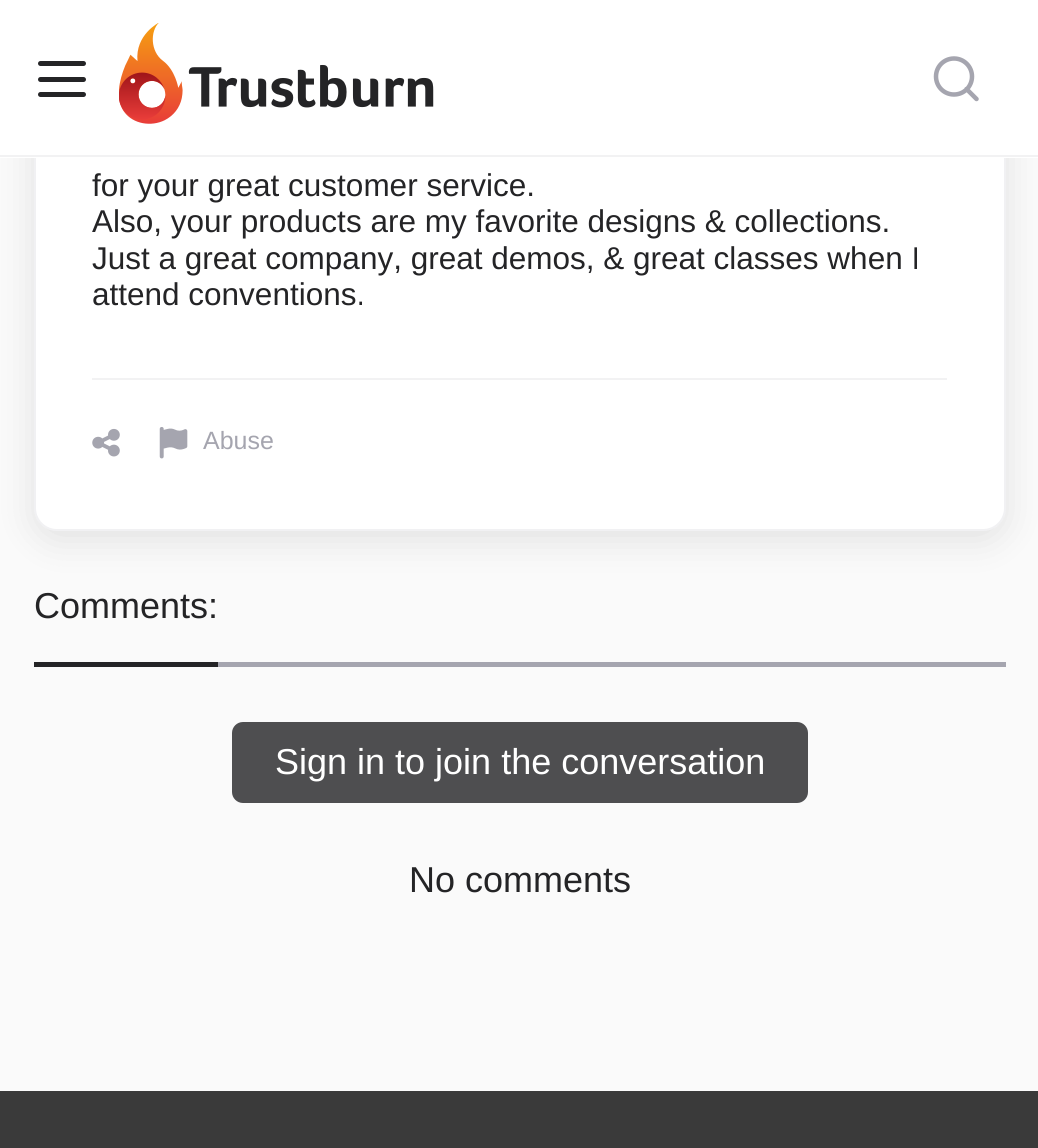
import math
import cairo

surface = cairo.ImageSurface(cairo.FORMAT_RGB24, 1038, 1148)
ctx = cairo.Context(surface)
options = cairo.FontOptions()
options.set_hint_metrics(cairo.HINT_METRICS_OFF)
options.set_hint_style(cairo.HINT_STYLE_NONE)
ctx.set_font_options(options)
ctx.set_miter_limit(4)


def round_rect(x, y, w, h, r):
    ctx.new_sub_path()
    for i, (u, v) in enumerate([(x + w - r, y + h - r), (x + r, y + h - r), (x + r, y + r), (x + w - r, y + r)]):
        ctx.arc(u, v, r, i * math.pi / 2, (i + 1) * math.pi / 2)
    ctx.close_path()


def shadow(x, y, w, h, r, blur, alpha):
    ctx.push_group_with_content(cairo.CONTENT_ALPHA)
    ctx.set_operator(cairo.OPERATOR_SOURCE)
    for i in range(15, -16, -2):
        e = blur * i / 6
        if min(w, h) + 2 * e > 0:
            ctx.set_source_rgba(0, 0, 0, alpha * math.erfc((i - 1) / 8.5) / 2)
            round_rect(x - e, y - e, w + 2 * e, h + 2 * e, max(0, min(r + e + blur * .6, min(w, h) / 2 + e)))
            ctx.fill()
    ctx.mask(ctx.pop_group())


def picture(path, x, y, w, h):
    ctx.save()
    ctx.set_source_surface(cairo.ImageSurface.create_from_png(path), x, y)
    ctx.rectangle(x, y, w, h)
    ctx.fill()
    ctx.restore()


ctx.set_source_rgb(0.98, 0.98, 0.98)
ctx.paint()
ctx.set_source_rgb(0, 0, 0)
shadow(34, -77, 972, 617, 23, 18, 0.1)
ctx.set_source_rgb(1, 1, 1)
round_rect(34, -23, 972, 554, 23)
ctx.fill()
round_rect(35, -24, 970, 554, 22)
ctx.set_source_rgba(0.647, 0.647, 0.686, 0.15)
ctx.stroke()
ctx.set_source_rgb(1, 1, 1)
ctx.rectangle(0, 0, 1038, 158)
ctx.fill()
ctx.set_source_rgb(0.949, 0.949, 0.953)
ctx.rectangle(0, 155, 1038, 2)
ctx.fill()
ctx.set_source_rgb(0.141, 0.141, 0.149)
round_rect(38, 61, 48, 5, 2.5)
ctx.fill()
round_rect(38, 77, 48, 5, 2.5)
ctx.fill()
round_rect(38, 92, 48, 5, 2.5)
ctx.fill()
picture("img1.png", 119, 23, 315, 101)
ctx.new_path()
ctx.move_to(954, 94.5)
ctx.curve_to(964, 94.5, 972, 86.5, 972, 76.5)
ctx.curve_to(972, 66.5, 964, 58.5, 954, 58.5)
ctx.curve_to(944, 58.5, 936, 66.5, 936, 76.5)
ctx.curve_to(936, 86.5, 944, 94.5, 954, 94.5)
ctx.close_path()
ctx.move_to(976.5, 99)
ctx.line_to(966.5, 89)
ctx.set_source_rgb(0.647, 0.647, 0.686)
ctx.set_line_width(4.5)
ctx.set_line_cap(cairo.LINE_CAP_ROUND)
ctx.set_line_join(cairo.LINE_JOIN_ROUND)
ctx.stroke()
ctx.set_source_rgb(0.949, 0.949, 0.953)
ctx.rectangle(92, 378, 855, 2)
ctx.fill()
ctx.select_font_face("Liberation Sans")
ctx.set_font_size(31.5)
ctx.set_source_rgb(0.141, 0.141, 0.149)
ctx.move_to(92, 196)
ctx.show_text("for your great customer service.")
ctx.move_to(92, 232)
ctx.show_text("Also, your products are my favorite designs & collections.")
ctx.move_to(92, 269)
ctx.show_text("Just a great company, great demos, & great classes when I")
ctx.move_to(92, 305)
ctx.show_text("attend conventions.")
picture("img2.png", 92, 428, 28, 29)
picture("img3.png", 159, 427, 29, 32)
ctx.set_font_size(25)
ctx.set_source_rgb(0.647, 0.647, 0.686)
ctx.move_to(203, 449)
ctx.show_text("Abuse")
ctx.rectangle(218, 662, 788, 5)
ctx.fill()
ctx.set_source_rgb(0.141, 0.141, 0.149)
ctx.rectangle(34, 662, 184, 5)
ctx.fill()
ctx.set_font_size(36)
ctx.move_to(34, 618)
ctx.show_text("Comments:")
ctx.set_source_rgb(0.306, 0.306, 0.314)
round_rect(233, 723, 574, 79, 10)
ctx.fill_preserve()
ctx.set_line_width(2)
ctx.set_line_cap(cairo.LINE_CAP_BUTT)
ctx.set_line_join(cairo.LINE_JOIN_MITER)
ctx.stroke()
ctx.set_source_rgb(1, 1, 1)
ctx.move_to(275, 774)
ctx.show_text("Sign in to join the conversation")
ctx.set_source_rgb(0.141, 0.141, 0.149)
ctx.move_to(409, 892)
ctx.show_text("No comments")
ctx.set_source_rgb(0.227, 0.227, 0.227)
ctx.rectangle(0, 1091, 1038, 57)
ctx.fill()
surface.write_to_png("page.png")
